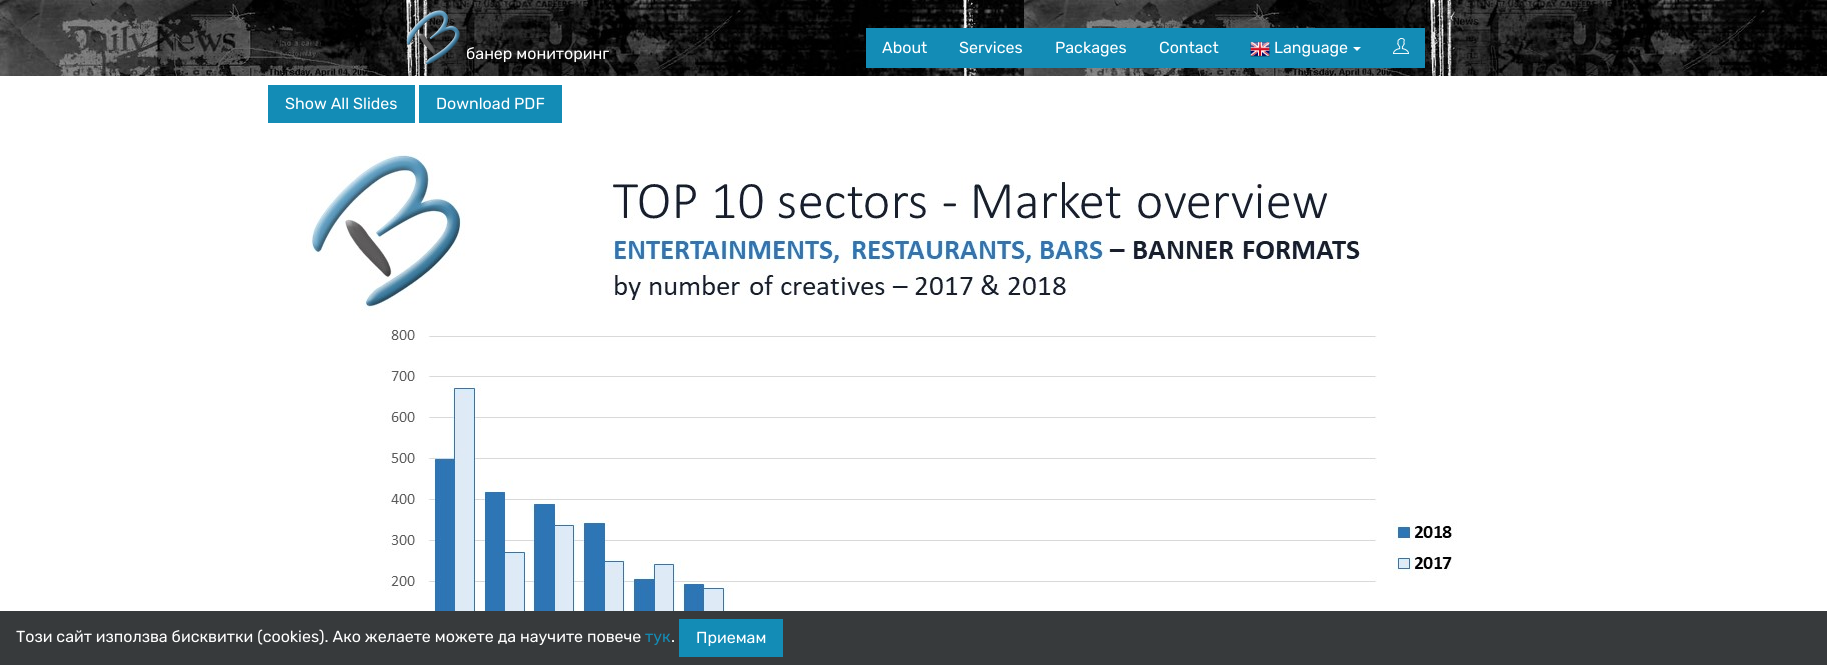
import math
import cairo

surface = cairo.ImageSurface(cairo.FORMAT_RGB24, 1827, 665)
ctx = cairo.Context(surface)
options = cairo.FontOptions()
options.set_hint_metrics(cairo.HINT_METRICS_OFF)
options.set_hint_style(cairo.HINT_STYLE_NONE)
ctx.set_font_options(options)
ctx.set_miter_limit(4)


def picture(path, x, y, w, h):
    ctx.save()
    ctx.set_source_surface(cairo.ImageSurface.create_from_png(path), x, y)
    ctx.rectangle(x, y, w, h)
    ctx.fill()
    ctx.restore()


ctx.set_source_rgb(1, 1, 1)
ctx.paint()
picture("img1.png", 0, 0, 1827, 76)
picture("img2.png", 406, 10, 54, 55)
ctx.select_font_face("Rubik")
ctx.set_font_size(16)
ctx.set_source_rgb(1, 1, 1)
ctx.move_to(466, 59)
ctx.show_text("банер мониторинг")
ctx.set_source_rgb(0.078, 0.549, 0.714)
ctx.rectangle(866, 28, 368, 40)
ctx.fill()
ctx.set_source_rgb(1, 1, 1)
ctx.move_to(882, 53)
ctx.show_text("About")
ctx.move_to(959, 53)
ctx.show_text("Services")
ctx.move_to(1055, 53)
ctx.show_text("Packages")
ctx.move_to(1159, 53)
ctx.show_text("Contact")
ctx.set_source_rgb(0.078, 0.549, 0.714)
ctx.rectangle(1234, 28, 191, 40)
ctx.fill()
picture("img3.png", 1393, 38, 16, 16)
picture("img4.png", 1250, 41, 20, 16)
ctx.set_source_rgb(1, 1, 1)
ctx.move_to(1274, 53)
ctx.show_text("Language")
ctx.new_path()
ctx.move_to(1353, 47)
ctx.line_to(1361, 47)
ctx.line_to(1357, 51)
ctx.close_path()
ctx.fill()
ctx.set_source_rgb(0.078, 0.549, 0.714)
ctx.rectangle(268, 85, 147, 38)
ctx.fill()
ctx.set_source_rgb(1, 1, 1)
ctx.move_to(285, 109)
ctx.show_text("Show All Slides")
ctx.set_source_rgb(0.078, 0.549, 0.714)
ctx.rectangle(419, 85, 143, 38)
ctx.fill()
ctx.set_source_rgb(1, 1, 1)
ctx.move_to(436, 109)
ctx.show_text("Download PDF")
picture("img5.png", 306, 152, 1151, 459)
ctx.set_source_rgb(0.216, 0.227, 0.235)
ctx.rectangle(0, 611, 1827, 54)
ctx.fill()
ctx.set_source_rgb(1, 1, 1)
ctx.move_to(16, 642)
ctx.show_text("Този сайт използва бисквитки (cookies). Ако желаете можете да научите повече")
ctx.set_source_rgb(0.078, 0.549, 0.714)
ctx.move_to(645, 642)
ctx.show_text("тук")
ctx.set_source_rgb(1, 1, 1)
ctx.move_to(671, 642)
ctx.show_text(".")
ctx.set_source_rgb(0.078, 0.549, 0.714)
ctx.rectangle(679, 619, 104, 38)
ctx.fill()
ctx.set_source_rgb(1, 1, 1)
ctx.move_to(696, 643)
ctx.show_text("Приемам")
surface.write_to_png("page.png")
